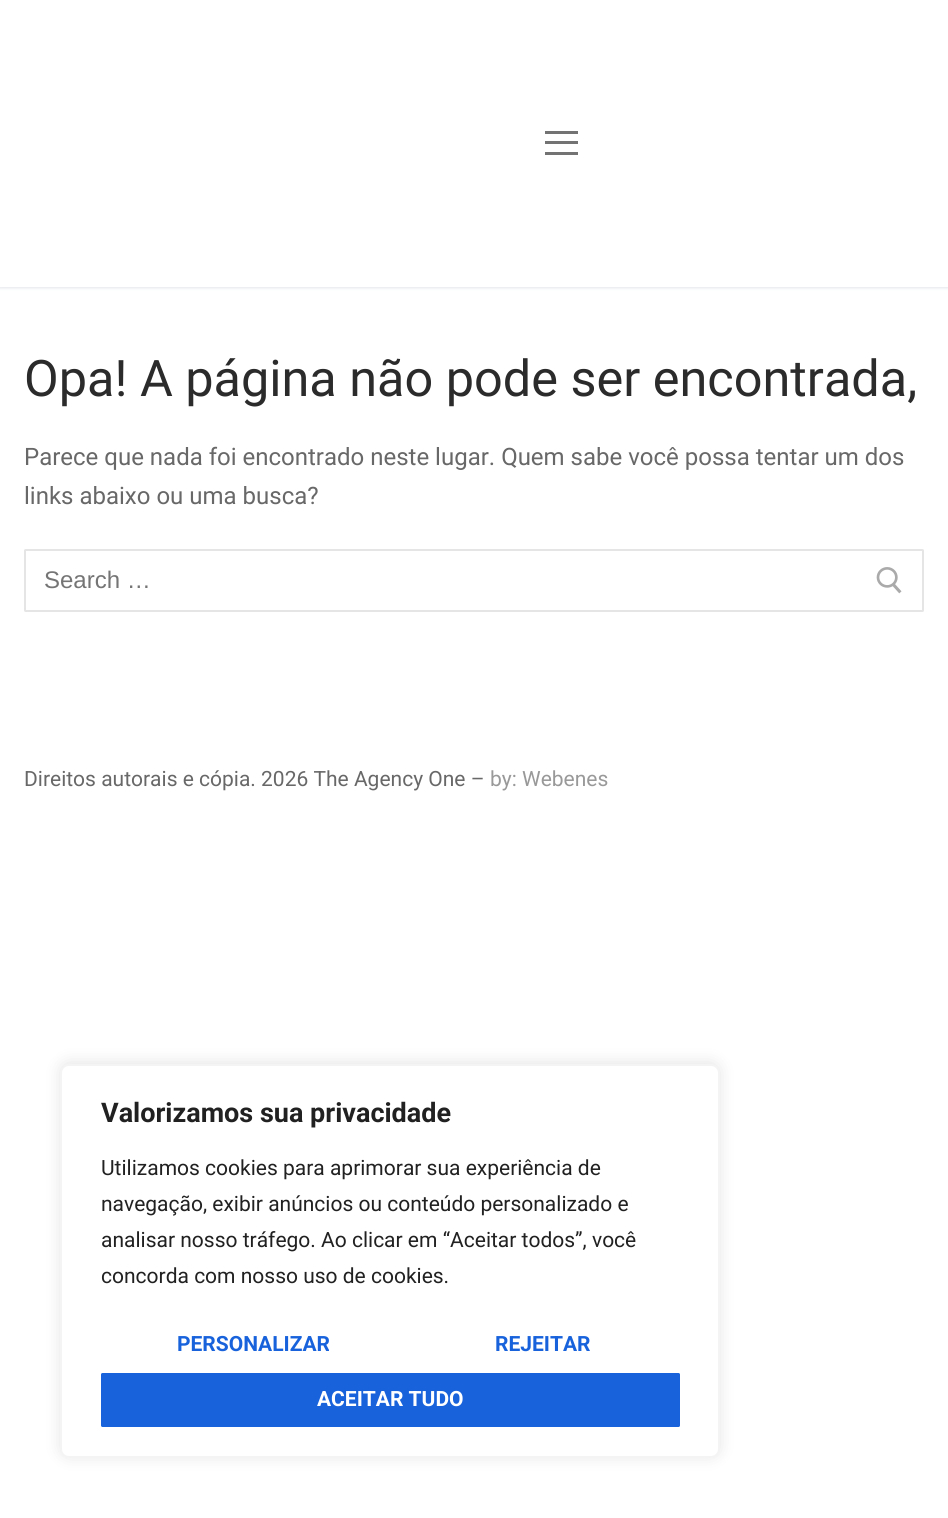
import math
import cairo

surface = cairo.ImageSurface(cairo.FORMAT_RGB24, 948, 1518)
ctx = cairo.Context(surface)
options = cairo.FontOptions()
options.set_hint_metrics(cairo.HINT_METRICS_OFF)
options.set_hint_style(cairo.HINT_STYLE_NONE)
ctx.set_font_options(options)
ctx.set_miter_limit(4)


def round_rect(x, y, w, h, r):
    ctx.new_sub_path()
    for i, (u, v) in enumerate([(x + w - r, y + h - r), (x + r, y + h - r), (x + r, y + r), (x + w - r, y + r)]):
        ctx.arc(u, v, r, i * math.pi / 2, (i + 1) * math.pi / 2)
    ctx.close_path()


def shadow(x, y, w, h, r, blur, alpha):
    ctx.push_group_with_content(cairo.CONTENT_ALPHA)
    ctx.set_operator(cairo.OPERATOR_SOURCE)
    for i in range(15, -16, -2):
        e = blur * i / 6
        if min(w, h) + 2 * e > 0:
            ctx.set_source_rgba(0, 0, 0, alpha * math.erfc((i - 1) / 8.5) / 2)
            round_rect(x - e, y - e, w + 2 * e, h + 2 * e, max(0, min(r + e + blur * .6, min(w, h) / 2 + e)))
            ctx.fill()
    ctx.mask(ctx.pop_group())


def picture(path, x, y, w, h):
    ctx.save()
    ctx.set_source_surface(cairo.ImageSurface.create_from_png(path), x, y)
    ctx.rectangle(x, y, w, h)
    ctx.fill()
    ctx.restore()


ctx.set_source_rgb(1, 1, 1)
ctx.paint()
ctx.set_source_rgb(0.882, 0.898, 0.918)
shadow(0, 2, 948, 286, 0, 1.5, 1)
ctx.set_source_rgb(1, 1, 1)
ctx.rectangle(0, 0, 948, 287)
ctx.fill()
ctx.set_source_rgb(0.451, 0.451, 0.451)
ctx.rectangle(545, 141, 33, 3)
ctx.fill()
ctx.rectangle(545, 131, 33, 3)
ctx.fill()
ctx.rectangle(545, 152, 33, 3)
ctx.fill()
ctx.select_font_face("Roboto")
ctx.set_font_size(50.4)
ctx.set_source_rgb(0.169, 0.169, 0.169)
ctx.move_to(24, 396)
ctx.show_text("Opa! A página não pode ser encontrada,")
ctx.set_font_size(24)
ctx.set_source_rgb(0.408, 0.408, 0.408)
ctx.move_to(24, 465)
ctx.show_text("Parece que nada foi encontrado neste lugar. Quem sabe você possa tentar um dos")
ctx.move_to(24, 504)
ctx.show_text("links abaixo ou uma busca?")
round_rect(25, 550, 898, 61, 0.5)
ctx.set_source_rgb(0.898, 0.898, 0.898)
ctx.stroke()
ctx.select_font_face("Liberation Sans")
ctx.set_source_rgb(0.459, 0.459, 0.459)
ctx.move_to(44, 588)
ctx.show_text("Search …")
picture("img1.png", 876, 567, 26, 27)
ctx.select_font_face("Roboto")
ctx.set_font_size(21)
ctx.set_source_rgb(0.408, 0.408, 0.408)
ctx.move_to(24, 786)
ctx.show_text("Direitos autorais e cópia. 2026 The Agency One –")
ctx.set_source_rgb(0.6, 0.6, 0.6)
ctx.move_to(490, 786)
ctx.show_text("by: Webenes")
ctx.set_source_rgb(0.675, 0.671, 0.671)
shadow(60, 1062, 660, 395, 9, 7.5, 0.3)
ctx.set_source_rgb(1, 1, 1)
round_rect(61, 1065, 658, 392, 8)
ctx.fill_preserve()
ctx.set_source_rgb(0.957, 0.957, 0.957)
ctx.stroke()
ctx.select_font_face("Roboto", cairo.FONT_SLANT_NORMAL, cairo.FONT_WEIGHT_BOLD)
ctx.set_font_size(27)
ctx.set_source_rgb(0.129, 0.129, 0.129)
ctx.move_to(101, 1122)
ctx.show_text("Valorizamos sua privacidade")
ctx.select_font_face("Roboto")
ctx.set_font_size(21)
ctx.move_to(101, 1175)
ctx.show_text("Utilizamos cookies para aprimorar sua experiência de")
ctx.move_to(101, 1211)
ctx.show_text("navegação, exibir anúncios ou conteúdo personalizado e")
ctx.move_to(101, 1247)
ctx.show_text("analisar nosso tráfego. Ao clicar em “Aceitar todos”, você")
ctx.move_to(101, 1283)
ctx.show_text("concorda com nosso uso de cookies.")
ctx.select_font_face("Roboto", cairo.FONT_SLANT_NORMAL, cairo.FONT_WEIGHT_BOLD)
ctx.set_source_rgb(0.094, 0.388, 0.863)
ctx.move_to(177, 1351)
ctx.show_text("PERSONALIZAR")
ctx.move_to(495, 1351)
ctx.show_text("REJEITAR")
round_rect(101, 1373, 579, 54, 1.5)
ctx.fill()
ctx.set_source_rgb(1, 1, 1)
ctx.move_to(317, 1406)
ctx.show_text("ACEITAR TUDO")
surface.write_to_png("page.png")
